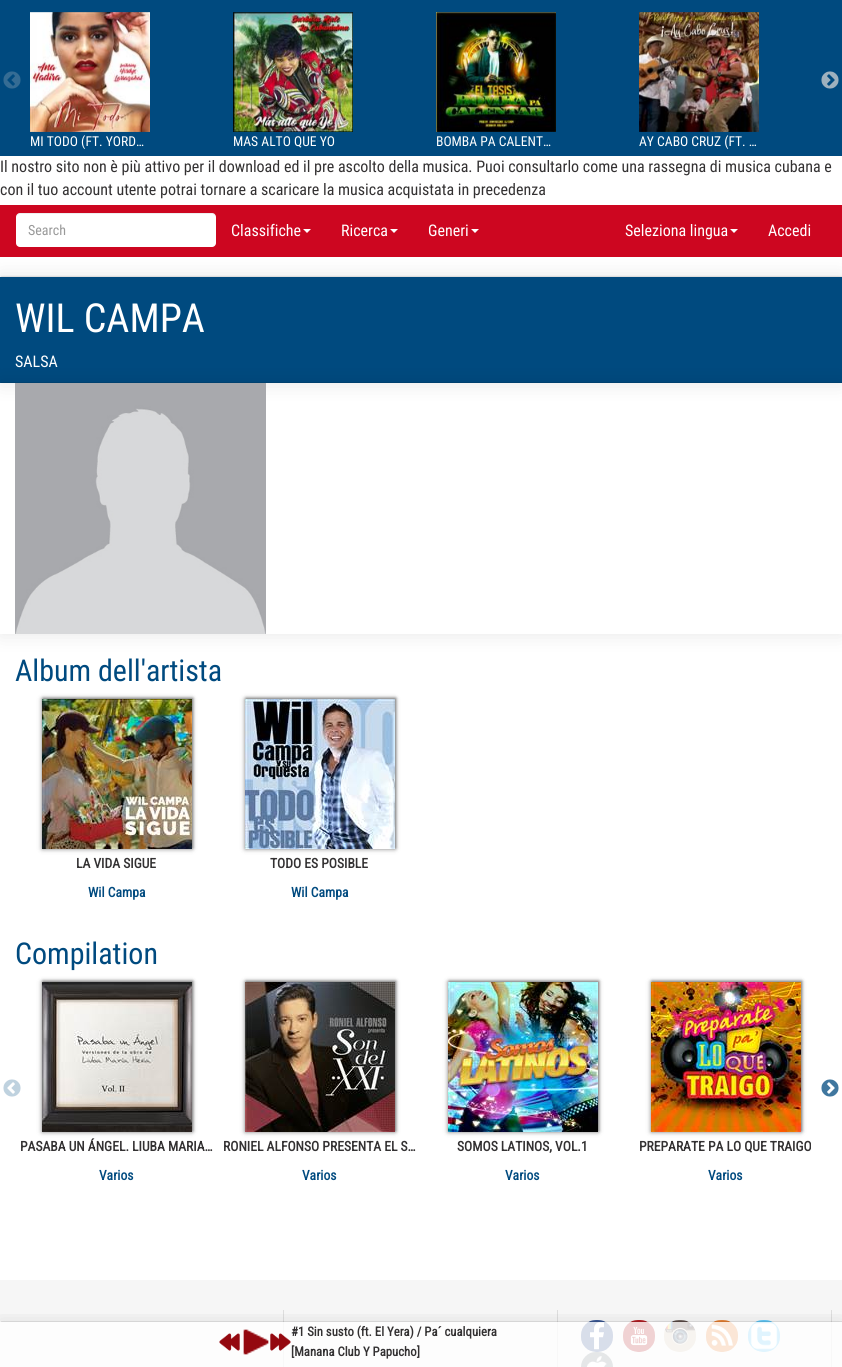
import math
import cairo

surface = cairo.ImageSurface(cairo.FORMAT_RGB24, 842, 1367)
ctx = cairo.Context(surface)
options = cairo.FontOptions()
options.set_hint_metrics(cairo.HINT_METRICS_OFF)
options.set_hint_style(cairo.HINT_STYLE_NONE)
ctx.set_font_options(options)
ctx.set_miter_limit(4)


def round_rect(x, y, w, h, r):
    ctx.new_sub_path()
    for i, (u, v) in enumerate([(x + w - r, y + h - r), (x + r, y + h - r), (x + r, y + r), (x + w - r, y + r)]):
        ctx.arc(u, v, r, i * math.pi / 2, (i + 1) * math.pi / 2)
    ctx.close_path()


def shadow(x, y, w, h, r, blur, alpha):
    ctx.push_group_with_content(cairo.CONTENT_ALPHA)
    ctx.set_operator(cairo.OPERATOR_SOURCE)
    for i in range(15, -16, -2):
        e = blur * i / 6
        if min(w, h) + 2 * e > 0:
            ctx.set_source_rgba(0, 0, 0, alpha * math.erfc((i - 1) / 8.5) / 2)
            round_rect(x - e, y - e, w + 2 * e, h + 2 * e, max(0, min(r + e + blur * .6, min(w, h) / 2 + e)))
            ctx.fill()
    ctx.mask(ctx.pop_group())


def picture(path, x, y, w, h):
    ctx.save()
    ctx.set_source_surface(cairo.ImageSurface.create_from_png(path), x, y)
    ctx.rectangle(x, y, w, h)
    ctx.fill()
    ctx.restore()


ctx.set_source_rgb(1, 1, 1)
ctx.paint()
ctx.set_source_rgb(0, 0.29, 0.498)
ctx.rectangle(0, 0, 842, 156)
ctx.fill()
picture("img1.png", 3, 71, 18, 18)
picture("img2.png", 821, 71, 18, 18)
picture("img3.png", 30, 12, 120, 120)
ctx.select_font_face("Roboto Condensed")
ctx.set_font_size(13.6)
ctx.set_source_rgb(1, 1, 1)
ctx.move_to(30, 146)
ctx.show_text("MI TODO (FT. YORD…")
picture("img4.png", 233, 12, 120, 120)
ctx.move_to(233, 146)
ctx.show_text("MAS ALTO QUE YO")
picture("img5.png", 436, 12, 120, 120)
ctx.move_to(436, 146)
ctx.show_text("BOMBA PA CALENT…")
picture("img6.png", 639, 12, 120, 120)
ctx.move_to(639, 146)
ctx.show_text("AY CABO CRUZ (FT. …")
ctx.set_font_size(16)
ctx.set_source_rgb(0.2, 0.192, 0.196)
ctx.move_to(0, 172)
ctx.show_text("Il nostro sito non è più attivo per il download ed il pre ascolto della musica. Puoi consultarlo come una rassegna di musica cubana e")
ctx.move_to(0, 195)
ctx.show_text("con il tuo account utente potrai tornare a scaricare la musica acquistata in precedenza")
ctx.set_source_rgb(0.804, 0.027, 0.125)
ctx.rectangle(0, 205, 842, 52)
ctx.fill()
ctx.set_source_rgb(1, 1, 1)
round_rect(16, 213, 200, 34, 4)
ctx.fill()
ctx.set_source_rgba(0, 0, 0, 0.07)
ctx.new_path()
ctx.move_to(20, 214)
ctx.line_to(212, 214)
ctx.curve_to(214, 214, 216, 216, 216, 218)
ctx.line_to(216, 217)
ctx.curve_to(216, 215, 214, 213, 212, 213)
ctx.line_to(20, 213)
ctx.curve_to(18, 213, 16, 215, 16, 217)
ctx.line_to(16, 218)
ctx.curve_to(16, 216, 18, 214, 20, 214)
ctx.close_path()
ctx.fill()
ctx.set_font_size(14)
ctx.set_source_rgb(0.6, 0.6, 0.6)
ctx.move_to(28, 235)
ctx.show_text("Search")
ctx.set_font_size(16)
ctx.set_source_rgb(1, 1, 1)
ctx.move_to(231, 236)
ctx.show_text("Classifiche")
ctx.new_path()
ctx.move_to(303, 229)
ctx.line_to(311, 229)
ctx.line_to(307, 233)
ctx.close_path()
ctx.fill()
ctx.move_to(341, 236)
ctx.show_text("Ricerca")
ctx.new_path()
ctx.move_to(390, 229)
ctx.line_to(398, 229)
ctx.line_to(394, 233)
ctx.close_path()
ctx.fill()
ctx.move_to(428, 236)
ctx.show_text("Generi")
ctx.new_path()
ctx.move_to(471, 229)
ctx.line_to(479, 229)
ctx.line_to(475, 233)
ctx.close_path()
ctx.fill()
ctx.move_to(625, 236)
ctx.show_text("Seleziona lingua")
ctx.new_path()
ctx.move_to(730, 229)
ctx.line_to(738, 229)
ctx.line_to(734, 233)
ctx.close_path()
ctx.fill()
ctx.move_to(768, 236)
ctx.show_text("Accedi")
ctx.set_source_rgb(0, 0, 0)
shadow(0, 277, 842, 106, 0, 10, 0.1)
shadow(1, 276, 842, 106, 0, 0.5, 0.1)
ctx.set_source_rgb(0, 0.29, 0.498)
ctx.rectangle(0, 277, 842, 106)
ctx.fill()
ctx.set_font_size(40)
ctx.set_source_rgb(1, 1, 1)
ctx.move_to(15, 332)
ctx.show_text("WIL CAMPA")
ctx.set_font_size(16)
ctx.move_to(15, 367)
ctx.show_text("SALSA")
ctx.save()
ctx.set_fill_rule(cairo.FILL_RULE_EVEN_ODD)
ctx.new_path()
ctx.move_to(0, 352)
ctx.line_to(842, 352)
ctx.line_to(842, 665)
ctx.line_to(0, 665)
ctx.close_path()
ctx.move_to(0, 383)
ctx.line_to(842, 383)
ctx.line_to(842, 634)
ctx.line_to(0, 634)
ctx.close_path()
ctx.clip()
ctx.set_source_rgb(0, 0, 0)
shadow(0, 383, 842, 251, 0, 10, 0.1)
ctx.restore()
ctx.save()
ctx.rectangle(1, 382, 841, 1)
ctx.clip()
ctx.set_source_rgb(0, 0, 0)
shadow(1, 382, 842, 251, 0, 0.5, 0.1)
ctx.restore()
picture("img7.png", 15, 383, 251, 251)
ctx.set_font_size(30)
ctx.set_source_rgb(0, 0.29, 0.498)
ctx.move_to(15, 681)
ctx.show_text("Album dell'artista")
ctx.set_source_rgb(0, 0, 0)
shadow(42, 699, 150, 150, 0, 2.5, 0.4)
shadow(43, 698, 150, 150, 0, 1.5, 0.4)
picture("img8.png", 42, 699, 150, 150)
ctx.select_font_face("Roboto Condensed", cairo.FONT_SLANT_NORMAL, cairo.FONT_WEIGHT_BOLD)
ctx.set_font_size(13.6)
ctx.set_source_rgb(0.2, 0.192, 0.196)
ctx.move_to(76, 868)
ctx.show_text("LA VIDA SIGUE")
ctx.set_source_rgb(0, 0.29, 0.498)
ctx.move_to(88, 897)
ctx.show_text("Wil Campa")
ctx.set_source_rgb(0, 0, 0)
shadow(245, 699, 150, 150, 0, 2.5, 0.4)
shadow(246, 698, 150, 150, 0, 1.5, 0.4)
picture("img9.png", 245, 699, 150, 150)
ctx.set_source_rgb(0.2, 0.192, 0.196)
ctx.move_to(270, 868)
ctx.show_text("TODO ES POSIBLE")
ctx.set_source_rgb(0, 0.29, 0.498)
ctx.move_to(291, 897)
ctx.show_text("Wil Campa")
ctx.select_font_face("Roboto Condensed")
ctx.set_font_size(30)
ctx.move_to(15, 964)
ctx.show_text("Compilation")
picture("img10.png", 3, 1079, 18, 18)
picture("img11.png", 821, 1079, 18, 18)
ctx.set_source_rgb(0, 0, 0)
shadow(42, 982, 150, 150, 0, 2.5, 0.4)
shadow(43, 981, 150, 150, 0, 1.5, 0.4)
picture("img12.png", 42, 982, 150, 150)
ctx.select_font_face("Roboto Condensed", cairo.FONT_SLANT_NORMAL, cairo.FONT_WEIGHT_BOLD)
ctx.set_font_size(13.6)
ctx.set_source_rgb(0.2, 0.192, 0.196)
ctx.move_to(20, 1151)
ctx.show_text("PASABA UN ÁNGEL. LIUBA MARIA…")
ctx.set_source_rgb(0, 0.29, 0.498)
ctx.move_to(99, 1180)
ctx.show_text("Varios")
ctx.set_source_rgb(0, 0, 0)
shadow(245, 982, 150, 150, 0, 2.5, 0.4)
shadow(246, 981, 150, 150, 0, 1.5, 0.4)
picture("img13.png", 245, 982, 150, 150)
ctx.set_source_rgb(0.2, 0.192, 0.196)
ctx.move_to(223, 1151)
ctx.show_text("RONIEL ALFONSO PRESENTA EL S…")
ctx.set_source_rgb(0, 0.29, 0.498)
ctx.move_to(302, 1180)
ctx.show_text("Varios")
ctx.set_source_rgb(0, 0, 0)
shadow(448, 982, 150, 150, 0, 2.5, 0.4)
shadow(449, 981, 150, 150, 0, 1.5, 0.4)
picture("img14.png", 448, 982, 150, 150)
ctx.set_source_rgb(0.2, 0.192, 0.196)
ctx.move_to(457, 1151)
ctx.show_text("SOMOS LATINOS, VOL.1")
ctx.set_source_rgb(0, 0.29, 0.498)
ctx.move_to(505, 1180)
ctx.show_text("Varios")
ctx.set_source_rgb(0, 0, 0)
shadow(651, 982, 150, 150, 0, 2.5, 0.4)
shadow(652, 981, 150, 150, 0, 1.5, 0.4)
picture("img15.png", 651, 982, 150, 150)
ctx.set_source_rgb(0.2, 0.192, 0.196)
ctx.move_to(639, 1151)
ctx.show_text("PREPARATE PA LO QUE TRAIGO")
ctx.set_source_rgb(0, 0.29, 0.498)
ctx.move_to(708, 1180)
ctx.show_text("Varios")
ctx.set_source_rgb(0.961, 0.961, 0.961)
ctx.rectangle(0, 1280, 842, 87)
ctx.fill()
ctx.set_source_rgb(0.867, 0.867, 0.867)
ctx.rectangle(283, 1310, 1, 57)
ctx.fill()
ctx.rectangle(557, 1310, 1, 57)
ctx.fill()
ctx.rectangle(831, 1310, 1, 57)
ctx.fill()
picture("img16.png", 581, 1320, 32, 32)
picture("img17.png", 623, 1320, 32, 32)
picture("img18.png", 664, 1320, 32, 32)
picture("img19.png", 706, 1320, 32, 32)
picture("img20.png", 748, 1320, 32, 32)
picture("img21.png", 581, 1352, 32, 15)
ctx.save()
ctx.rectangle(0, 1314, 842, 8)
ctx.clip()
ctx.set_source_rgb(0, 0, 0)
shadow(0, 1322, 842, 45, 0, 10, 0.1)
ctx.restore()
ctx.save()
ctx.rectangle(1, 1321, 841, 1)
ctx.clip()
ctx.set_source_rgb(0, 0, 0)
shadow(1, 1321, 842, 45, 0, 0.5, 0.1)
ctx.restore()
ctx.set_source_rgba(1, 1, 1, 0.8)
ctx.rectangle(0, 1322, 842, 45)
ctx.fill()
picture("img22.png", 219, 1333, 21, 18)
picture("img23.png", 243, 1329, 26, 26)
picture("img24.png", 270, 1333, 21, 18)
ctx.set_font_size(12.75)
ctx.set_source_rgb(0.2, 0.192, 0.196)
ctx.move_to(291, 1336)
ctx.show_text("#1 Sin susto (ft. El Yera) / Pa´ cualquiera")
ctx.move_to(291, 1356)
ctx.show_text("[Manana Club Y Papucho]")
surface.write_to_png("page.png")
